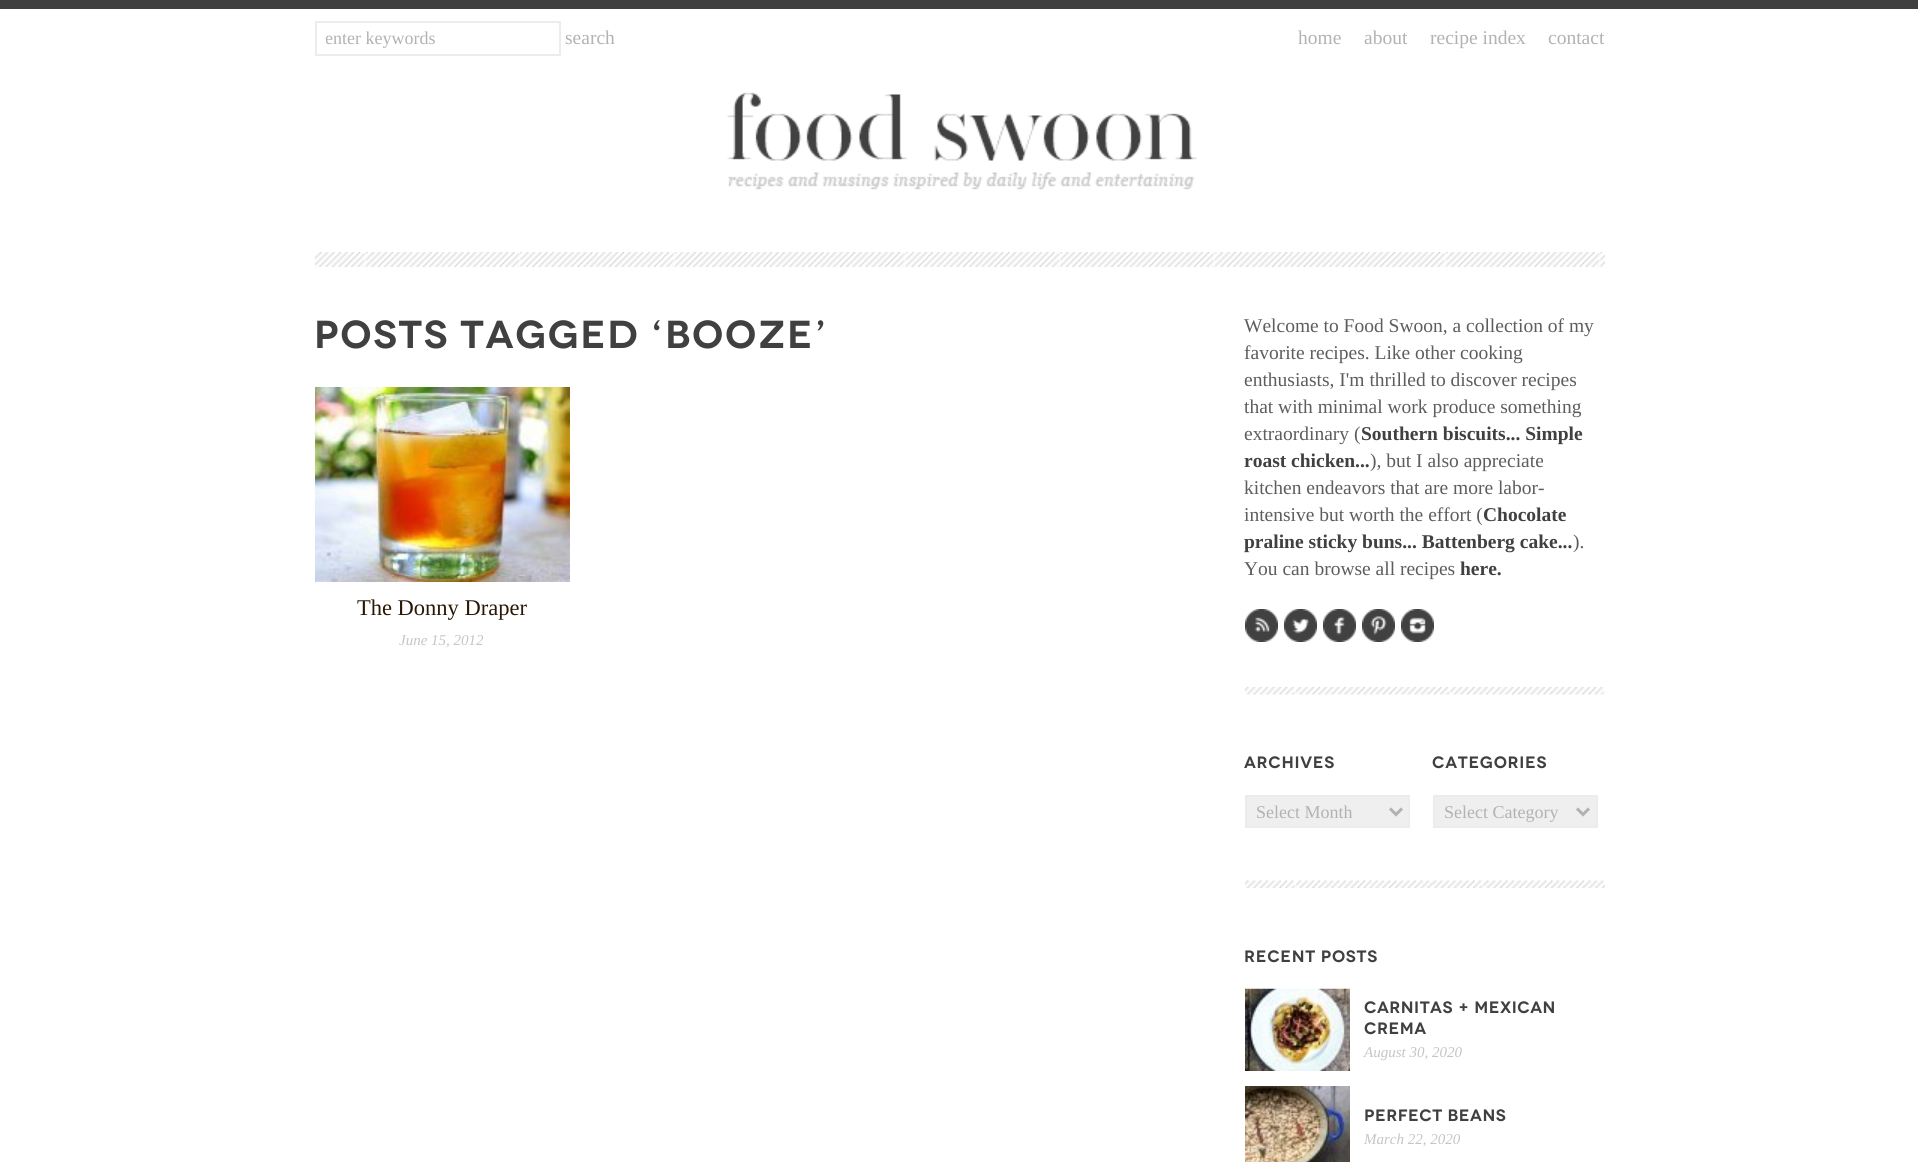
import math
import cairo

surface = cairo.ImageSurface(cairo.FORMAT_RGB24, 1918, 1162)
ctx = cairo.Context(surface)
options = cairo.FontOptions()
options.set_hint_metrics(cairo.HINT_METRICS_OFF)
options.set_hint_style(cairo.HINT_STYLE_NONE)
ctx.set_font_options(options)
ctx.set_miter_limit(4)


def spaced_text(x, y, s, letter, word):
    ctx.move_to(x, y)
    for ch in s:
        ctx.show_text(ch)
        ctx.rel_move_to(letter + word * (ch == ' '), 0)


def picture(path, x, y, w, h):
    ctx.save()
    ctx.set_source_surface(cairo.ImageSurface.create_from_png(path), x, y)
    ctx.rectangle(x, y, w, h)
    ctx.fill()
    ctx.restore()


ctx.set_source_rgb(1, 1, 1)
ctx.paint()
ctx.set_source_rgb(0.247, 0.251, 0.247)
ctx.rectangle(0, 0, 1918, 9)
ctx.fill()
picture("img1.png", 315, 252, 1290, 15)
ctx.rectangle(316, 22, 244, 33)
ctx.set_source_rgb(0.922, 0.922, 0.922)
ctx.stroke()
ctx.save()
ctx.rectangle(326, 27, 225, 23)
ctx.clip()
ctx.select_font_face("Liberation Serif")
ctx.set_font_size(18)
ctx.set_source_rgb(0.698, 0.698, 0.698)
ctx.move_to(325, 44)
ctx.show_text("enter keywords")
ctx.restore()
ctx.select_font_face("Liberation Serif")
ctx.set_font_size(19.5)
ctx.set_source_rgb(0.698, 0.698, 0.698)
ctx.move_to(565, 44)
ctx.show_text("search")
ctx.move_to(1298, 44)
ctx.show_text("home")
ctx.move_to(1364, 44)
ctx.show_text("about")
ctx.move_to(1430, 44)
ctx.show_text("recipe index")
ctx.move_to(1548, 44)
ctx.show_text("contact")
picture("img2.png", 727, 92, 470, 98)
ctx.select_font_face("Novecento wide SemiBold")
ctx.set_font_size(39)
ctx.set_source_rgb(0.247, 0.251, 0.247)
spaced_text(314, 348, "POSTS TAGGED ‘BOOZE’", 1.6, 0)
picture("img3.png", 315, 387, 255, 195)
ctx.select_font_face("Liberation Serif")
ctx.set_font_size(22.5)
ctx.set_source_rgb(0.165, 0.09, 0.016)
ctx.move_to(357, 615)
ctx.show_text("The Donny Draper")
ctx.select_font_face("Liberation Serif", cairo.FONT_SLANT_ITALIC)
ctx.set_font_size(15)
ctx.set_source_rgb(0.773, 0.773, 0.773)
ctx.move_to(399, 645)
ctx.show_text("June 15, 2012")
picture("img4.png", 1245, 687, 360, 8)
ctx.select_font_face("Liberation Serif")
ctx.set_font_size(19.5)
ctx.set_source_rgb(0.361, 0.365, 0.361)
ctx.move_to(1244, 332)
ctx.show_text("Welcome to Food Swoon, a collection of my")
ctx.move_to(1244, 359)
ctx.show_text("favorite recipes. Like other cooking")
ctx.move_to(1244, 386)
ctx.show_text("enthusiasts, I'm thrilled to discover recipes")
ctx.move_to(1244, 413)
ctx.show_text("that with minimal work produce something")
ctx.move_to(1244, 440)
ctx.show_text("extraordinary (")
ctx.select_font_face("Liberation Serif", cairo.FONT_SLANT_NORMAL, cairo.FONT_WEIGHT_BOLD)
ctx.set_source_rgb(0.247, 0.251, 0.247)
ctx.move_to(1361, 440)
ctx.show_text("Southern biscuits... Simple")
ctx.move_to(1244, 467)
ctx.show_text("roast chicken...")
ctx.select_font_face("Liberation Serif")
ctx.set_source_rgb(0.361, 0.365, 0.361)
ctx.move_to(1370, 467)
ctx.show_text("), but I also appreciate")
ctx.move_to(1244, 494)
ctx.show_text("kitchen endeavors that are more labor-")
ctx.move_to(1244, 521)
ctx.show_text("intensive but worth the effort (")
ctx.select_font_face("Liberation Serif", cairo.FONT_SLANT_NORMAL, cairo.FONT_WEIGHT_BOLD)
ctx.set_source_rgb(0.247, 0.251, 0.247)
ctx.move_to(1483, 521)
ctx.show_text("Chocolate")
ctx.move_to(1244, 548)
ctx.show_text("praline sticky buns... Battenberg cake...")
ctx.select_font_face("Liberation Serif")
ctx.set_source_rgb(0.361, 0.365, 0.361)
ctx.move_to(1573, 548)
ctx.show_text(").")
ctx.move_to(1244, 575)
ctx.show_text("You can browse all recipes")
ctx.select_font_face("Liberation Serif", cairo.FONT_SLANT_NORMAL, cairo.FONT_WEIGHT_BOLD)
ctx.set_source_rgb(0.247, 0.251, 0.247)
ctx.move_to(1460, 575)
ctx.show_text("here.")
picture("img5.png", 1245, 609, 33, 33)
picture("img6.png", 1284, 609, 33, 33)
picture("img7.png", 1323, 609, 33, 33)
picture("img8.png", 1362, 609, 33, 33)
picture("img9.png", 1401, 609, 33, 33)
picture("img10.png", 1245, 880, 188, 8)
ctx.select_font_face("Novecento wide SemiBold")
ctx.set_font_size(16.5)
spaced_text(1244, 768, "archives", 0.7, 0)
ctx.set_source_rgb(0.937, 0.937, 0.937)
ctx.rectangle(1246, 796, 163, 31)
ctx.fill_preserve()
ctx.set_source_rgb(0.922, 0.922, 0.922)
ctx.stroke()
ctx.new_path()
ctx.move_to(1390, 808.5)
ctx.line_to(1396, 814.5)
ctx.line_to(1402, 808.5)
ctx.set_source_rgb(0.698, 0.698, 0.698)
ctx.set_line_width(3)
ctx.stroke()
ctx.select_font_face("Liberation Serif")
ctx.set_font_size(18)
ctx.move_to(1256, 818)
ctx.show_text("Select Month")
picture("img11.png", 1432, 880, 173, 8)
ctx.select_font_face("Novecento wide SemiBold")
ctx.set_font_size(16.5)
ctx.set_source_rgb(0.247, 0.251, 0.247)
spaced_text(1432, 768, "categories", 0.7, 0)
ctx.set_source_rgb(0.937, 0.937, 0.937)
ctx.rectangle(1434, 796, 163, 31)
ctx.fill_preserve()
ctx.set_source_rgb(0.922, 0.922, 0.922)
ctx.set_line_width(2)
ctx.stroke()
ctx.new_path()
ctx.move_to(1577, 808.5)
ctx.line_to(1583, 814.5)
ctx.line_to(1589, 808.5)
ctx.set_source_rgb(0.698, 0.698, 0.698)
ctx.set_line_width(3)
ctx.stroke()
ctx.select_font_face("Liberation Serif")
ctx.set_font_size(18)
ctx.move_to(1444, 818)
ctx.show_text("Select Category")
ctx.select_font_face("Novecento wide SemiBold")
ctx.set_font_size(16.5)
ctx.set_source_rgb(0.247, 0.251, 0.247)
spaced_text(1244, 962, "recent posts", 0.7, 0)
picture("img12.png", 1245, 988, 105, 83)
spaced_text(1364, 1013, "CARNITAS + MEXICAN", 0.5, 0)
spaced_text(1364, 1034, "CREMA", 0.5, 0)
ctx.select_font_face("Liberation Serif", cairo.FONT_SLANT_ITALIC)
ctx.set_font_size(15)
ctx.set_source_rgb(0.773, 0.773, 0.773)
ctx.move_to(1364, 1057)
ctx.show_text("August 30, 2020")
picture("img13.png", 1245, 1086, 105, 76)
ctx.select_font_face("Novecento wide SemiBold")
ctx.set_font_size(16.5)
ctx.set_source_rgb(0.247, 0.251, 0.247)
spaced_text(1364, 1121, "PERFECT BEANS", 0.5, 0)
ctx.select_font_face("Liberation Serif", cairo.FONT_SLANT_ITALIC)
ctx.set_font_size(15)
ctx.set_source_rgb(0.773, 0.773, 0.773)
ctx.move_to(1364, 1144)
ctx.show_text("March 22, 2020")
surface.write_to_png("page.png")
